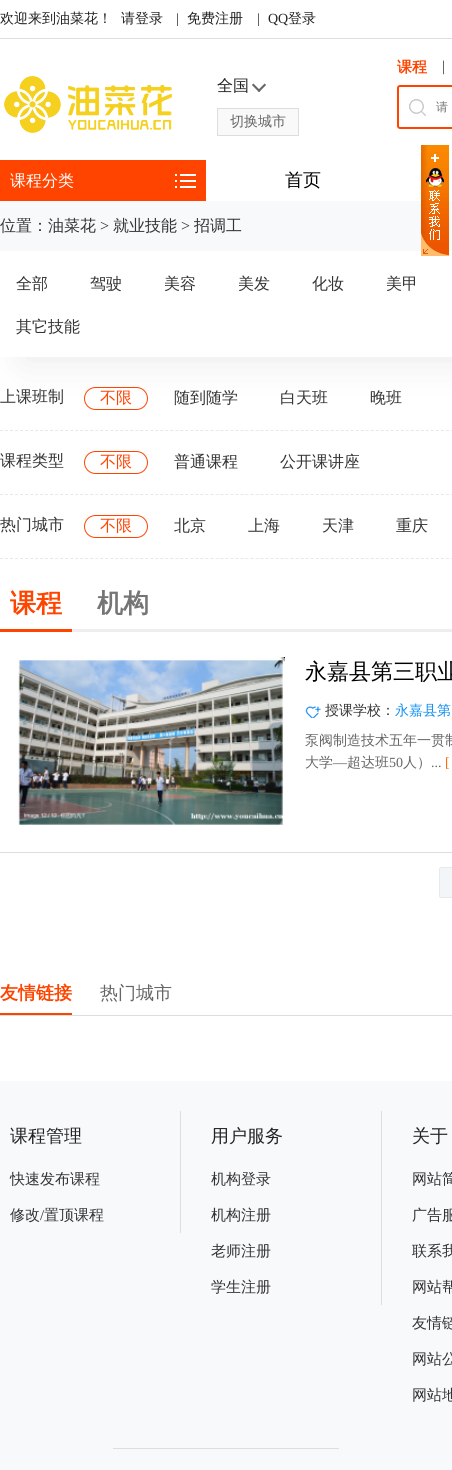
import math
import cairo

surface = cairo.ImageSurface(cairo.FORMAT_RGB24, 452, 1470)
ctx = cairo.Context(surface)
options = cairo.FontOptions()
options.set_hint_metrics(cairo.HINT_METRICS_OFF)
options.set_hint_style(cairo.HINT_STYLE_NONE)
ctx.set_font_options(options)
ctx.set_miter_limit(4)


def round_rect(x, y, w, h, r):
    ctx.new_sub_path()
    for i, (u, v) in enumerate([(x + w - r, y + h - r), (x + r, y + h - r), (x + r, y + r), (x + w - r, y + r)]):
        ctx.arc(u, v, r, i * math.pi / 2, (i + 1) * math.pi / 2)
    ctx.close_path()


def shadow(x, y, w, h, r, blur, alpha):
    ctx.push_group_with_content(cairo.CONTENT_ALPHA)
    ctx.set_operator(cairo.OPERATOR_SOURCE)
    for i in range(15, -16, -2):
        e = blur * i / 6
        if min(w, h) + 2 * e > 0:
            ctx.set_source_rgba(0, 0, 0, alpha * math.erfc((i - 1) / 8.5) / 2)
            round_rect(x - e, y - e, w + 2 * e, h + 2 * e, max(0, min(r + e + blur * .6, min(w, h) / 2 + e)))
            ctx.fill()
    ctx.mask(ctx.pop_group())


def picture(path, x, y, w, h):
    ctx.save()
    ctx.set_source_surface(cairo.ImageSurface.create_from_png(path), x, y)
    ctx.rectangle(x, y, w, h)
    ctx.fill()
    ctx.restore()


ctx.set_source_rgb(1, 1, 1)
ctx.paint()
ctx.set_source_rgb(0.867, 0.867, 0.867)
ctx.rectangle(0, 38, 452, 1)
ctx.fill()
ctx.select_font_face("WenQuanYi Zen Hei Medium")
ctx.set_font_size(14)
ctx.set_source_rgb(0.133, 0.133, 0.133)
ctx.move_to(0, 23)
ctx.show_text("欢迎来到油菜花！")
ctx.move_to(121, 23)
ctx.show_text("请登录")
ctx.select_font_face("Liberation Serif")
ctx.move_to(176, 23)
ctx.show_text("|")
ctx.select_font_face("WenQuanYi Zen Hei Medium")
ctx.move_to(187, 23)
ctx.show_text("免费注册")
ctx.select_font_face("Liberation Serif")
ctx.move_to(257, 23)
ctx.show_text("|")
ctx.move_to(268, 23)
ctx.show_text("QQ")
ctx.select_font_face("WenQuanYi Zen Hei Medium")
ctx.move_to(288, 23)
ctx.show_text("登录")
picture("img1.png", 4, 76, 168, 57)
picture("img2.png", 252, 83, 14, 9)
ctx.set_font_size(16)
ctx.move_to(217, 91)
ctx.show_text("全国")
ctx.set_source_rgb(0.976, 0.976, 0.976)
ctx.rectangle(217.5, 108.5, 81, 27)
ctx.fill_preserve()
ctx.set_source_rgb(0.867, 0.867, 0.867)
ctx.set_line_width(1)
ctx.stroke()
ctx.set_font_size(14)
ctx.set_source_rgb(0.4, 0.4, 0.4)
ctx.move_to(230, 126)
ctx.show_text("切换城市")
ctx.select_font_face("WenQuanYi Zen Hei", cairo.FONT_SLANT_NORMAL, cairo.FONT_WEIGHT_BOLD)
ctx.set_font_size(15)
ctx.set_source_rgb(1, 0.267, 0)
ctx.move_to(397, 72)
ctx.show_text("课程")
ctx.select_font_face("Liberation Serif")
ctx.set_source_rgb(0.2, 0.2, 0.2)
ctx.move_to(442, 71)
ctx.show_text("|")
round_rect(398, 86, 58, 42, 2)
ctx.set_source_rgb(1, 0.267, 0)
ctx.set_line_width(2)
ctx.stroke()
picture("img3.png", 409, 99, 17, 17)
ctx.select_font_face("WenQuanYi Zen Hei Medium")
ctx.set_font_size(12)
ctx.set_source_rgb(0.459, 0.459, 0.459)
ctx.move_to(436, 111)
ctx.show_text("请")
ctx.set_source_rgb(1, 0.267, 0)
ctx.rectangle(0, 160, 206, 41)
ctx.fill()
picture("img4.png", 175, 174, 21, 14)
ctx.set_font_size(16)
ctx.set_source_rgb(1, 1, 1)
ctx.move_to(10, 186)
ctx.show_text("课程分类")
ctx.set_font_size(18)
ctx.set_source_rgb(0, 0, 0)
ctx.move_to(285, 186)
ctx.show_text("首页")
ctx.set_source_rgb(0.969, 0.976, 0.984)
ctx.rectangle(0, 201, 452, 50)
ctx.fill()
ctx.save()
ctx.rectangle(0, 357, 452, 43)
ctx.clip()
ctx.set_source_rgb(0.91, 0.91, 0.91)
shadow(24, 311, 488, 48, 0, 20, 1)
ctx.restore()
picture("img5.png", 421, 145, 28, 111)
ctx.set_font_size(16)
ctx.set_source_rgb(0.2, 0.2, 0.2)
ctx.move_to(0, 231)
ctx.show_text("位置：油菜花")
ctx.select_font_face("Liberation Serif")
ctx.move_to(100, 231)
ctx.show_text(">")
ctx.select_font_face("WenQuanYi Zen Hei Medium")
ctx.move_to(113, 231)
ctx.show_text("就业技能")
ctx.select_font_face("Liberation Serif")
ctx.move_to(181, 231)
ctx.show_text(">")
ctx.select_font_face("WenQuanYi Zen Hei Medium")
ctx.move_to(194, 231)
ctx.show_text("招调工")
ctx.move_to(16, 289)
ctx.show_text("全部")
ctx.move_to(90, 289)
ctx.show_text("驾驶")
ctx.move_to(164, 289)
ctx.show_text("美容")
ctx.move_to(238, 289)
ctx.show_text("美发")
ctx.move_to(312, 289)
ctx.show_text("化妆")
ctx.move_to(386, 289)
ctx.show_text("美甲")
ctx.move_to(16, 332)
ctx.show_text("其它技能")
ctx.new_path()
ctx.move_to(0, 430.5)
ctx.line_to(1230, 430.5)
ctx.set_source_rgb(0.91, 0.91, 0.91)
ctx.set_line_width(1)
ctx.set_dash([3, 2.01])
ctx.stroke()
ctx.set_source_rgb(0.2, 0.2, 0.2)
ctx.move_to(0, 402)
ctx.show_text("上课班制")
round_rect(84.5, 387.5, 63, 22, 11)
ctx.set_source_rgb(1, 0.267, 0)
ctx.set_dash([])
ctx.stroke()
ctx.move_to(100, 403)
ctx.show_text("不限")
ctx.set_source_rgb(0.2, 0.2, 0.2)
ctx.move_to(174, 403)
ctx.show_text("随到随学")
ctx.move_to(280, 403)
ctx.show_text("白天班")
ctx.move_to(370, 403)
ctx.show_text("晚班")
ctx.new_path()
ctx.move_to(0, 494.5)
ctx.line_to(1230, 494.5)
ctx.set_source_rgb(0.91, 0.91, 0.91)
ctx.set_dash([3, 2.01])
ctx.stroke()
ctx.set_source_rgb(0.2, 0.2, 0.2)
ctx.move_to(0, 466)
ctx.show_text("课程类型")
round_rect(84.5, 451.5, 63, 22, 11)
ctx.set_source_rgb(1, 0.267, 0)
ctx.set_dash([])
ctx.stroke()
ctx.move_to(100, 467)
ctx.show_text("不限")
ctx.set_source_rgb(0.2, 0.2, 0.2)
ctx.move_to(174, 467)
ctx.show_text("普通课程")
ctx.move_to(280, 467)
ctx.show_text("公开课讲座")
ctx.new_path()
ctx.move_to(0, 558.5)
ctx.line_to(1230, 558.5)
ctx.set_source_rgb(0.91, 0.91, 0.91)
ctx.set_dash([3, 2.01])
ctx.stroke()
ctx.set_source_rgb(0.2, 0.2, 0.2)
ctx.move_to(0, 530)
ctx.show_text("热门城市")
round_rect(84.5, 515.5, 63, 22, 11)
ctx.set_source_rgb(1, 0.267, 0)
ctx.set_dash([])
ctx.stroke()
ctx.move_to(100, 531)
ctx.show_text("不限")
ctx.set_source_rgb(0.2, 0.2, 0.2)
ctx.move_to(174, 531)
ctx.show_text("北京")
ctx.move_to(248, 531)
ctx.show_text("上海")
ctx.move_to(322, 531)
ctx.show_text("天津")
ctx.move_to(396, 531)
ctx.show_text("重庆")
ctx.set_source_rgb(0.933, 0.933, 0.933)
ctx.rectangle(72, 629, 380, 3)
ctx.fill()
ctx.set_source_rgb(1, 0.267, 0)
ctx.rectangle(0, 629, 72, 3)
ctx.fill()
ctx.select_font_face("WenQuanYi Zen Hei", cairo.FONT_SLANT_NORMAL, cairo.FONT_WEIGHT_BOLD)
ctx.set_font_size(26)
ctx.move_to(10, 612)
ctx.show_text("课程")
ctx.set_source_rgb(0.459, 0.459, 0.459)
ctx.move_to(97, 612)
ctx.show_text("机构")
ctx.set_source_rgb(0.867, 0.867, 0.867)
ctx.rectangle(0, 852, 452, 1)
ctx.fill()
picture("img6.png", 18, 657, 267, 168)
ctx.select_font_face("WenQuanYi Zen Hei Medium")
ctx.set_font_size(22)
ctx.set_source_rgb(0, 0, 0)
ctx.move_to(305, 679)
ctx.show_text("永嘉县第三职业")
picture("img7.png", 305, 706, 16, 12)
ctx.set_font_size(14)
ctx.set_source_rgb(0.2, 0.2, 0.2)
ctx.move_to(325, 715)
ctx.show_text("授课学校：")
ctx.set_source_rgb(0.071, 0.561, 0.941)
ctx.move_to(395, 715)
ctx.show_text("永嘉县第")
ctx.set_source_rgb(0.4, 0.4, 0.4)
ctx.move_to(305, 745)
ctx.show_text("泵阀制造技术五年一贯制")
ctx.move_to(305, 767)
ctx.show_text("大学")
ctx.select_font_face("Liberation Serif")
ctx.move_to(333, 767)
ctx.show_text("―")
ctx.select_font_face("WenQuanYi Zen Hei Medium")
ctx.move_to(347, 767)
ctx.show_text("超达班")
ctx.select_font_face("Liberation Serif")
ctx.move_to(389, 767)
ctx.show_text("50")
ctx.select_font_face("WenQuanYi Zen Hei Medium")
ctx.move_to(403, 767)
ctx.show_text("人）")
ctx.select_font_face("Liberation Serif")
ctx.set_source_rgb(1, 0.4, 0)
ctx.move_to(445, 767)
ctx.show_text("[")
ctx.set_source_rgb(0.4, 0.4, 0.4)
ctx.move_to(431, 767)
ctx.show_text("...")
ctx.set_source_rgb(0.949, 0.961, 0.976)
round_rect(439.5, 867.5, 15, 30, 1.5)
ctx.fill_preserve()
ctx.set_source_rgb(0.914, 0.914, 0.914)
ctx.stroke()
ctx.set_source_rgb(0.867, 0.867, 0.867)
ctx.rectangle(0, 1015, 452, 1)
ctx.fill()
ctx.set_source_rgb(1, 0.267, 0)
ctx.rectangle(0, 1013, 72, 2)
ctx.fill()
ctx.select_font_face("WenQuanYi Zen Hei", cairo.FONT_SLANT_NORMAL, cairo.FONT_WEIGHT_BOLD)
ctx.set_font_size(18)
ctx.move_to(0, 999)
ctx.show_text("友情链接")
ctx.select_font_face("WenQuanYi Zen Hei Medium")
ctx.set_source_rgb(0.4, 0.4, 0.4)
ctx.move_to(100, 999)
ctx.show_text("热门城市")
ctx.set_source_rgb(0.969, 0.976, 0.984)
ctx.rectangle(0, 1081, 452, 389)
ctx.fill()
ctx.set_source_rgb(0.871, 0.871, 0.871)
ctx.rectangle(180, 1111, 1, 122)
ctx.fill()
ctx.set_source_rgb(0.133, 0.133, 0.133)
ctx.move_to(10, 1142)
ctx.show_text("课程管理")
ctx.set_font_size(15)
ctx.set_source_rgb(0.2, 0.2, 0.2)
ctx.move_to(10, 1184)
ctx.show_text("快速发布课程")
ctx.move_to(10, 1220)
ctx.show_text("修改")
ctx.select_font_face("Liberation Serif")
ctx.move_to(40, 1220)
ctx.show_text("/")
ctx.select_font_face("WenQuanYi Zen Hei Medium")
ctx.move_to(44, 1220)
ctx.show_text("置顶课程")
ctx.set_source_rgb(0.871, 0.871, 0.871)
ctx.rectangle(381, 1111, 1, 194)
ctx.fill()
ctx.set_font_size(18)
ctx.set_source_rgb(0.133, 0.133, 0.133)
ctx.move_to(211, 1142)
ctx.show_text("用户服务")
ctx.set_font_size(15)
ctx.set_source_rgb(0.2, 0.2, 0.2)
ctx.move_to(211, 1184)
ctx.show_text("机构登录")
ctx.move_to(211, 1220)
ctx.show_text("机构注册")
ctx.move_to(211, 1256)
ctx.show_text("老师注册")
ctx.move_to(211, 1292)
ctx.show_text("学生注册")
ctx.set_font_size(18)
ctx.set_source_rgb(0.133, 0.133, 0.133)
ctx.move_to(412, 1142)
ctx.show_text("关于")
ctx.set_font_size(15)
ctx.set_source_rgb(0.2, 0.2, 0.2)
ctx.move_to(412, 1184)
ctx.show_text("网站简")
ctx.move_to(412, 1220)
ctx.show_text("广告服")
ctx.move_to(412, 1256)
ctx.show_text("联系我")
ctx.move_to(412, 1292)
ctx.show_text("网站帮")
ctx.move_to(412, 1328)
ctx.show_text("友情链")
ctx.move_to(412, 1364)
ctx.show_text("网站公")
ctx.move_to(412, 1400)
ctx.show_text("网站地")
ctx.set_source_rgb(0.871, 0.871, 0.871)
ctx.rectangle(113, 1448, 226, 1)
ctx.fill()
surface.write_to_png("page.png")
